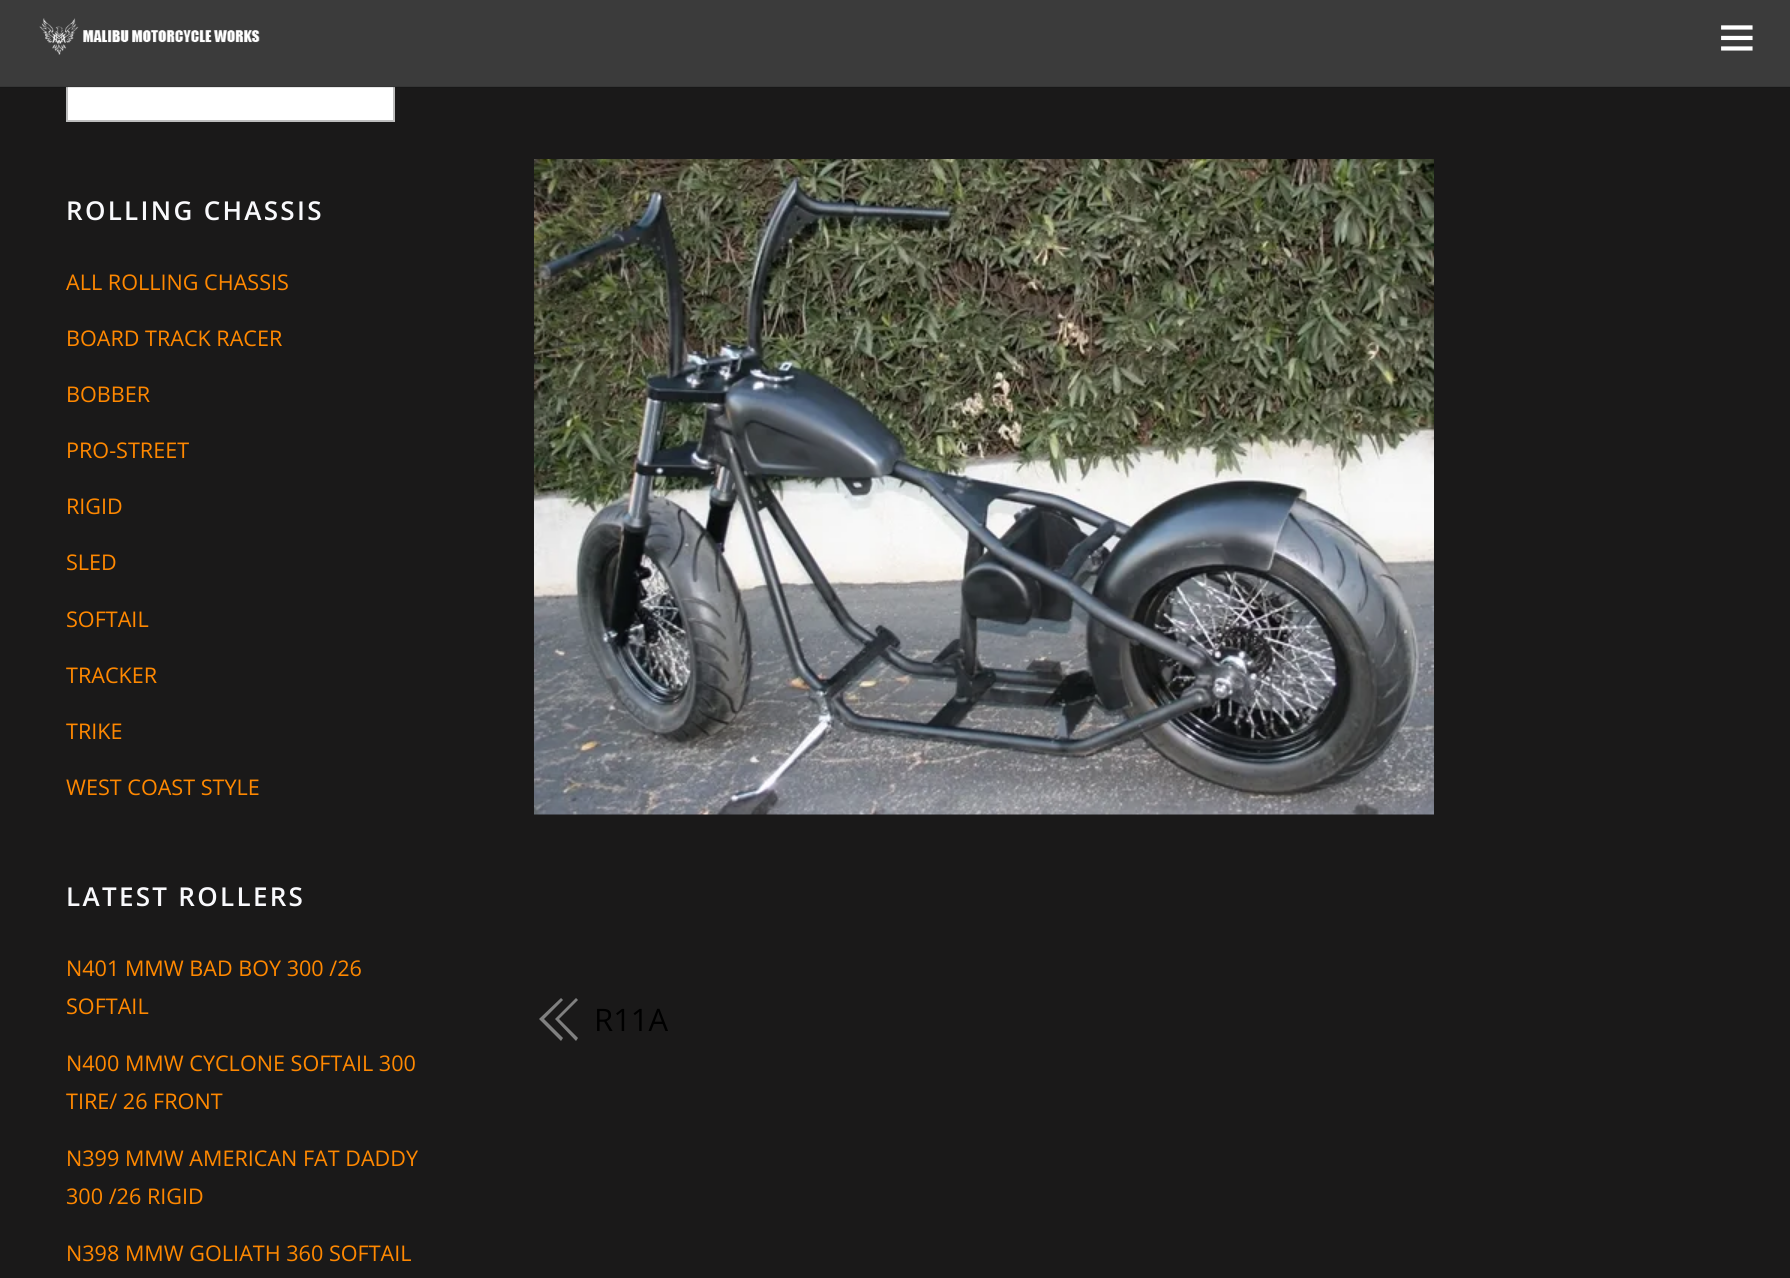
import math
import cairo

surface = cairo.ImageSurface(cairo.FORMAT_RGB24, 1790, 1278)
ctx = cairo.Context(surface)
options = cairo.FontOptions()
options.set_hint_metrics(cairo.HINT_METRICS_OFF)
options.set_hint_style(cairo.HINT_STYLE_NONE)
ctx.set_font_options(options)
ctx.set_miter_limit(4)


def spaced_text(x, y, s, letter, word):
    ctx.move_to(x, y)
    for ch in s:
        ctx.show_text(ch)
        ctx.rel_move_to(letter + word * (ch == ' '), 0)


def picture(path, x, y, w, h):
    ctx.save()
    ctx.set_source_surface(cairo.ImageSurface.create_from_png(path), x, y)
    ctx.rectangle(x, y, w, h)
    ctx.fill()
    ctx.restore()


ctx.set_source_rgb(0.102, 0.098, 0.098)
ctx.paint()
ctx.set_source_rgb(1, 1, 1)
ctx.rectangle(68, 87, 325, 33)
ctx.fill()
ctx.rectangle(67, 61, 327, 60)
ctx.set_source_rgb(0.741, 0.741, 0.741)
ctx.stroke()
ctx.set_source_rgb(0.231, 0.231, 0.231)
ctx.rectangle(0, 0, 1790, 87)
ctx.fill()
ctx.set_source_rgba(0, 0, 0, 0.1)
ctx.rectangle(0, 86, 1790, 2)
ctx.fill()
picture("img1.png", 39, 18, 221, 37)
picture("img2.png", 1721, 25, 32, 26)
ctx.select_font_face("Open Sans SemiBold")
ctx.set_font_size(26)
ctx.set_source_rgb(0.976, 0.976, 0.988)
spaced_text(66, 220, "ROLLING CHASSIS", 2.3, 0)
ctx.select_font_face("Open Sans")
ctx.set_font_size(21.6)
ctx.set_source_rgb(1, 0.533, 0)
ctx.move_to(66, 290)
ctx.show_text("ALL ROLLING CHASSIS")
ctx.move_to(66, 346)
ctx.show_text("BOARD TRACK RACER")
ctx.move_to(66, 402)
ctx.show_text("BOBBER")
ctx.move_to(66, 458)
ctx.show_text("PRO-STREET")
ctx.move_to(66, 514)
ctx.show_text("RIGID")
ctx.move_to(66, 570)
ctx.show_text("SLED")
ctx.move_to(66, 627)
ctx.show_text("SOFTAIL")
ctx.move_to(66, 683)
ctx.show_text("TRACKER")
ctx.move_to(66, 739)
ctx.show_text("TRIKE")
ctx.move_to(66, 795)
ctx.show_text("WEST COAST STYLE")
ctx.select_font_face("Open Sans SemiBold")
ctx.set_font_size(26)
ctx.set_source_rgb(0.976, 0.976, 0.988)
spaced_text(66, 906, "LATEST ROLLERS", 2.3, 0)
ctx.select_font_face("Open Sans")
ctx.set_font_size(21.6)
ctx.set_source_rgb(1, 0.533, 0)
ctx.move_to(66, 976)
ctx.show_text("N401 MMW BAD BOY 300 /26")
ctx.move_to(66, 1014)
ctx.show_text("SOFTAIL")
ctx.move_to(66, 1071)
ctx.show_text("N400 MMW CYCLONE SOFTAIL 300")
ctx.move_to(66, 1109)
ctx.show_text("TIRE/ 26 FRONT")
ctx.move_to(66, 1166)
ctx.show_text("N399 MMW AMERICAN FAT DADDY")
ctx.move_to(66, 1204)
ctx.show_text("300 /26 RIGID")
ctx.move_to(66, 1261)
ctx.show_text("N398 MMW GOLIATH 360 SOFTAIL")
picture("img3.png", 534, 159, 900, 656)
ctx.set_source_rgb(0.502, 0.502, 0.502)
ctx.new_path()
ctx.move_to(559, 1019)
ctx.line_to(578, 1038)
ctx.line_to(576, 1041)
ctx.line_to(555, 1019)
ctx.line_to(576, 998)
ctx.line_to(578, 1000)
ctx.close_path()
ctx.move_to(563, 1000)
ctx.line_to(561, 998)
ctx.line_to(539, 1019)
ctx.line_to(561, 1041)
ctx.line_to(563, 1038)
ctx.line_to(544, 1019)
ctx.close_path()
ctx.fill()
ctx.set_font_size(31)
ctx.set_source_rgb(0, 0, 0)
ctx.move_to(594, 1031)
ctx.show_text("R11A")
surface.write_to_png("page.png")
